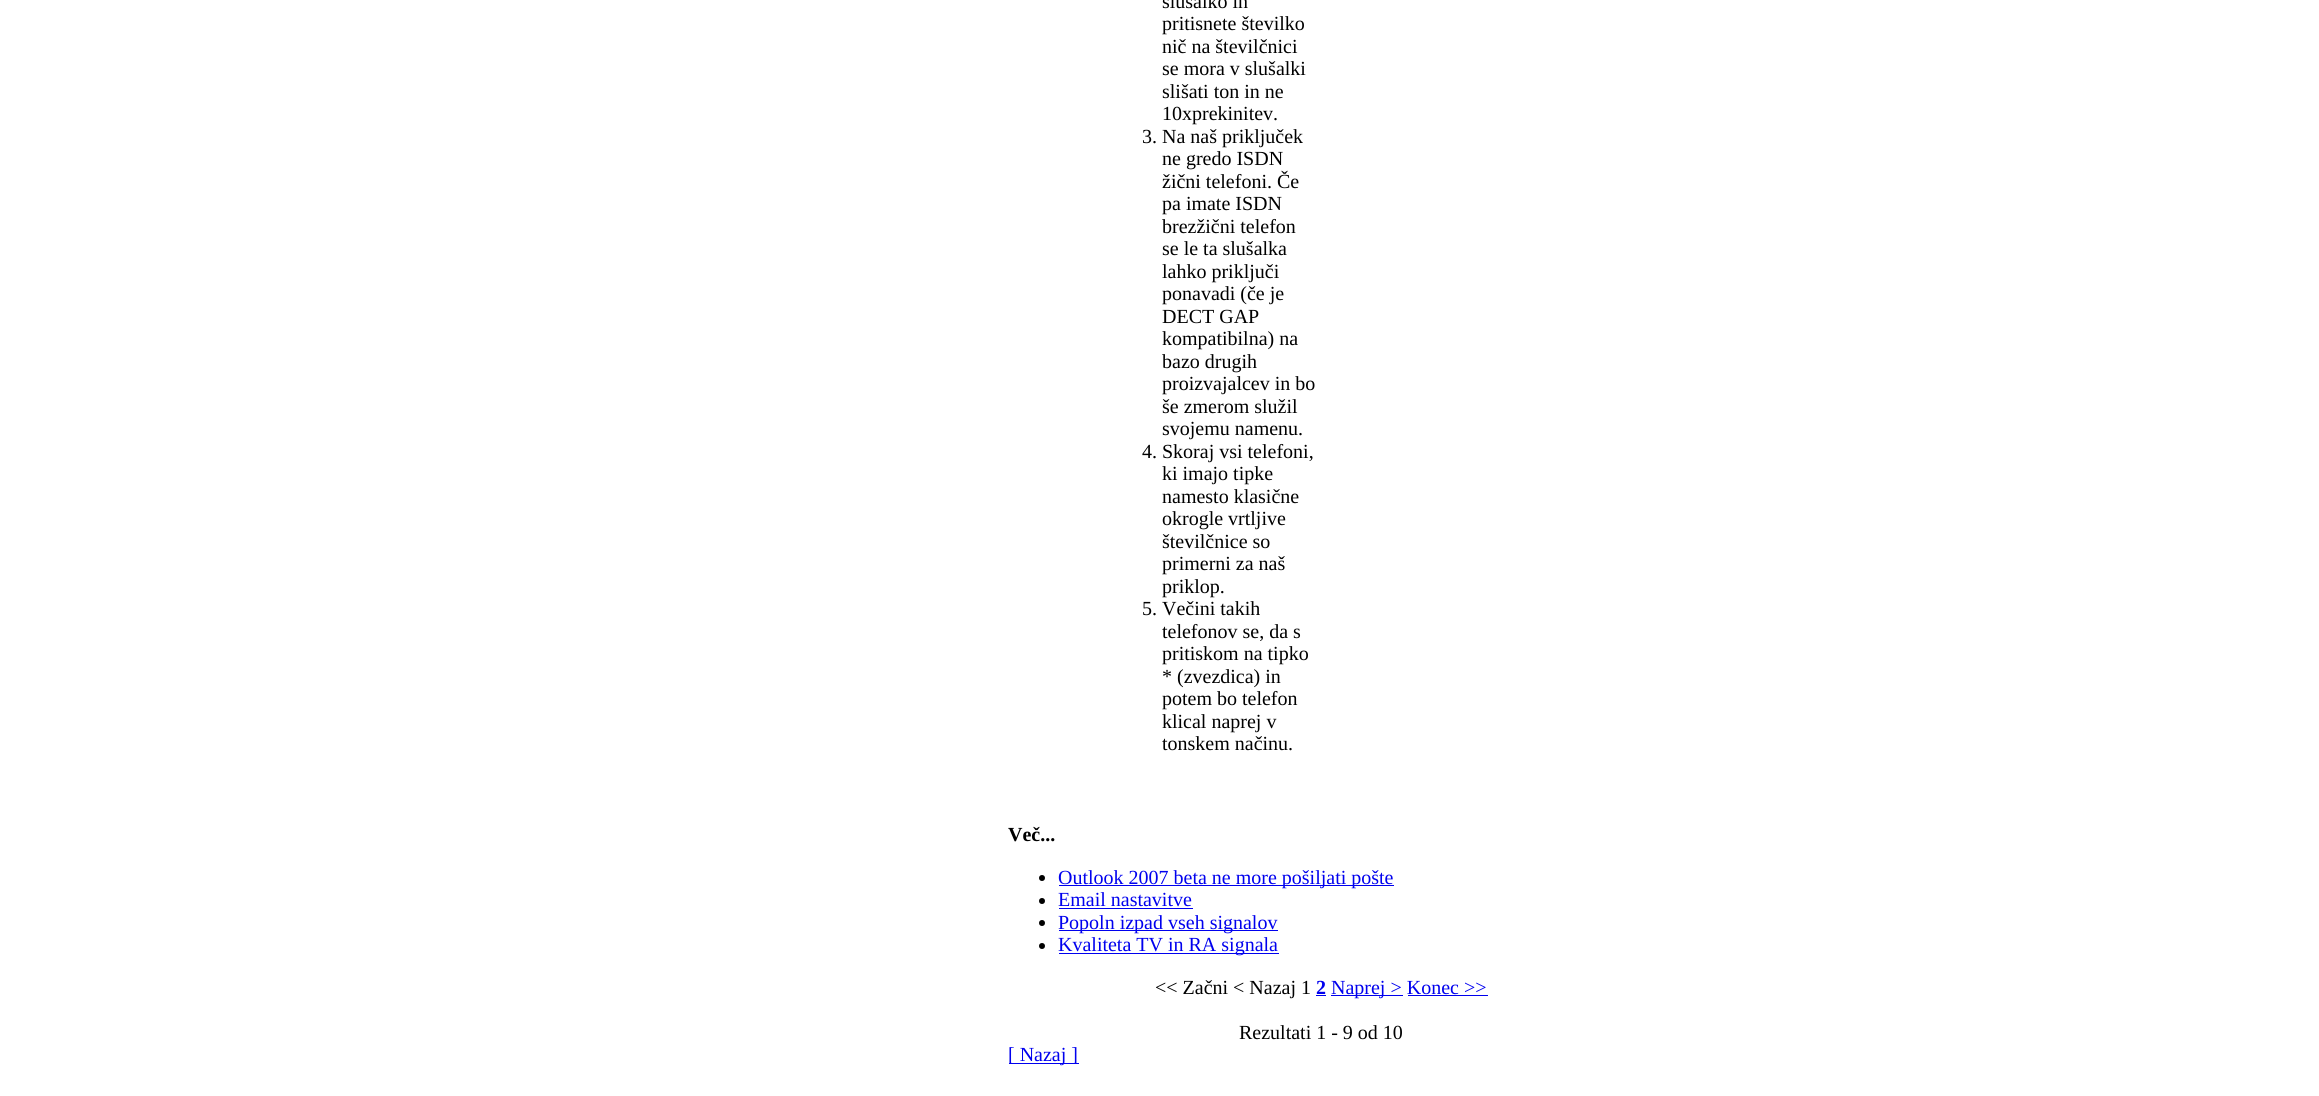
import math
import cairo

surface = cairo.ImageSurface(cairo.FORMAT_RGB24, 2319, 1096)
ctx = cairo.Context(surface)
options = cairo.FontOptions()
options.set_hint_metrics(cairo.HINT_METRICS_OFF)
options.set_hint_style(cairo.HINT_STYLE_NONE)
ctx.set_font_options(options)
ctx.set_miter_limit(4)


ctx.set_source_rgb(1, 1, 1)
ctx.paint()
ctx.select_font_face("Liberation Serif")
ctx.set_font_size(20)
ctx.set_source_rgb(0, 0, 0)
ctx.move_to(1162, 8)
ctx.show_text("slušalko in")
ctx.move_to(1162, 30)
ctx.show_text("pritisnete številko")
ctx.move_to(1162, 53)
ctx.show_text("nič na številčnici")
ctx.move_to(1162, 75)
ctx.show_text("se mora v slušalki")
ctx.move_to(1162, 98)
ctx.show_text("slišati ton in ne")
ctx.move_to(1162, 120)
ctx.show_text("10xprekinitev.")
ctx.move_to(1142, 143)
ctx.show_text("3. Na naš priključek")
ctx.move_to(1162, 165)
ctx.show_text("ne gredo ISDN")
ctx.move_to(1162, 188)
ctx.show_text("žični telefoni. Če")
ctx.move_to(1162, 210)
ctx.show_text("pa imate ISDN")
ctx.move_to(1162, 233)
ctx.show_text("brezžični telefon")
ctx.move_to(1162, 255)
ctx.show_text("se le ta slušalka")
ctx.move_to(1162, 278)
ctx.show_text("lahko priključi")
ctx.move_to(1162, 300)
ctx.show_text("ponavadi (če je")
ctx.move_to(1162, 323)
ctx.show_text("DECT GAP")
ctx.move_to(1162, 345)
ctx.show_text("kompatibilna) na")
ctx.move_to(1162, 368)
ctx.show_text("bazo drugih")
ctx.move_to(1162, 390)
ctx.show_text("proizvajalcev in bo")
ctx.move_to(1162, 413)
ctx.show_text("še zmerom služil")
ctx.move_to(1162, 435)
ctx.show_text("svojemu namenu.")
ctx.move_to(1142, 458)
ctx.show_text("4. Skoraj vsi telefoni,")
ctx.move_to(1162, 480)
ctx.show_text("ki imajo tipke")
ctx.move_to(1162, 503)
ctx.show_text("namesto klasične")
ctx.move_to(1162, 525)
ctx.show_text("okrogle vrtljive")
ctx.move_to(1162, 548)
ctx.show_text("številčnice so")
ctx.move_to(1162, 570)
ctx.show_text("primerni za naš")
ctx.move_to(1162, 593)
ctx.show_text("priklop.")
ctx.move_to(1142, 615)
ctx.show_text("5. Večini takih")
ctx.move_to(1162, 638)
ctx.show_text("telefonov se, da s")
ctx.move_to(1162, 660)
ctx.show_text("pritiskom na tipko")
ctx.move_to(1162, 683)
ctx.show_text("* (zvezdica) in")
ctx.move_to(1162, 705)
ctx.show_text("potem bo telefon")
ctx.move_to(1162, 728)
ctx.show_text("klical naprej v")
ctx.move_to(1162, 750)
ctx.show_text("tonskem načinu.")
ctx.select_font_face("Liberation Serif", cairo.FONT_SLANT_NORMAL, cairo.FONT_WEIGHT_BOLD)
ctx.move_to(1008, 841)
ctx.show_text("Več...")
ctx.new_path()
ctx.arc(1042, 878, 3, 0, 2 * math.pi)
ctx.fill()
ctx.set_source_rgb(0, 0, 0.933)
ctx.rectangle(1059, 885, 335, 1)
ctx.fill()
ctx.select_font_face("Liberation Serif")
ctx.move_to(1058, 884)
ctx.show_text("Outlook 2007 beta ne more pošiljati pošte")
ctx.set_source_rgb(0, 0, 0)
ctx.new_path()
ctx.arc(1042, 901, 3, 0, 2 * math.pi)
ctx.fill()
ctx.set_source_rgb(0, 0, 0.933)
ctx.move_to(1058, 906)
ctx.show_text("Email nastavitve")
ctx.rectangle(1059, 908, 134, 1)
ctx.fill()
ctx.set_source_rgb(0, 0, 0)
ctx.arc(1042, 923, 3, 0, 2 * math.pi)
ctx.fill()
ctx.set_source_rgb(0, 0, 0.933)
ctx.rectangle(1059, 930, 219, 1)
ctx.fill()
ctx.move_to(1058, 929)
ctx.show_text("Popoln izpad vseh signalov")
ctx.set_source_rgb(0, 0, 0)
ctx.new_path()
ctx.arc(1042, 946, 3, 0, 2 * math.pi)
ctx.fill()
ctx.set_source_rgb(0, 0, 0.933)
ctx.rectangle(1059, 953, 220, 1)
ctx.fill()
ctx.move_to(1058, 951)
ctx.show_text("Kvaliteta TV in RA signala")
ctx.set_source_rgb(0, 0, 0)
ctx.move_to(1155, 994)
ctx.show_text("<< Začni < Nazaj 1")
ctx.select_font_face("Liberation Serif", cairo.FONT_SLANT_NORMAL, cairo.FONT_WEIGHT_BOLD)
ctx.set_source_rgb(0, 0, 0.933)
ctx.move_to(1316, 994)
ctx.show_text("2")
ctx.rectangle(1316, 995, 10, 1)
ctx.fill()
ctx.rectangle(1331, 995, 72, 1)
ctx.fill()
ctx.select_font_face("Liberation Serif")
ctx.move_to(1331, 994)
ctx.show_text("Naprej > Konec >>")
ctx.rectangle(1408, 995, 80, 1)
ctx.fill()
ctx.set_source_rgb(0, 0, 0)
ctx.move_to(1239, 1039)
ctx.show_text("Rezultati 1 - 9 od 10")
ctx.set_source_rgb(0, 0, 0.933)
ctx.rectangle(1009, 1063, 70, 1)
ctx.fill()
ctx.move_to(1008, 1061)
ctx.show_text("[ Nazaj ]")
surface.write_to_png("page.png")
